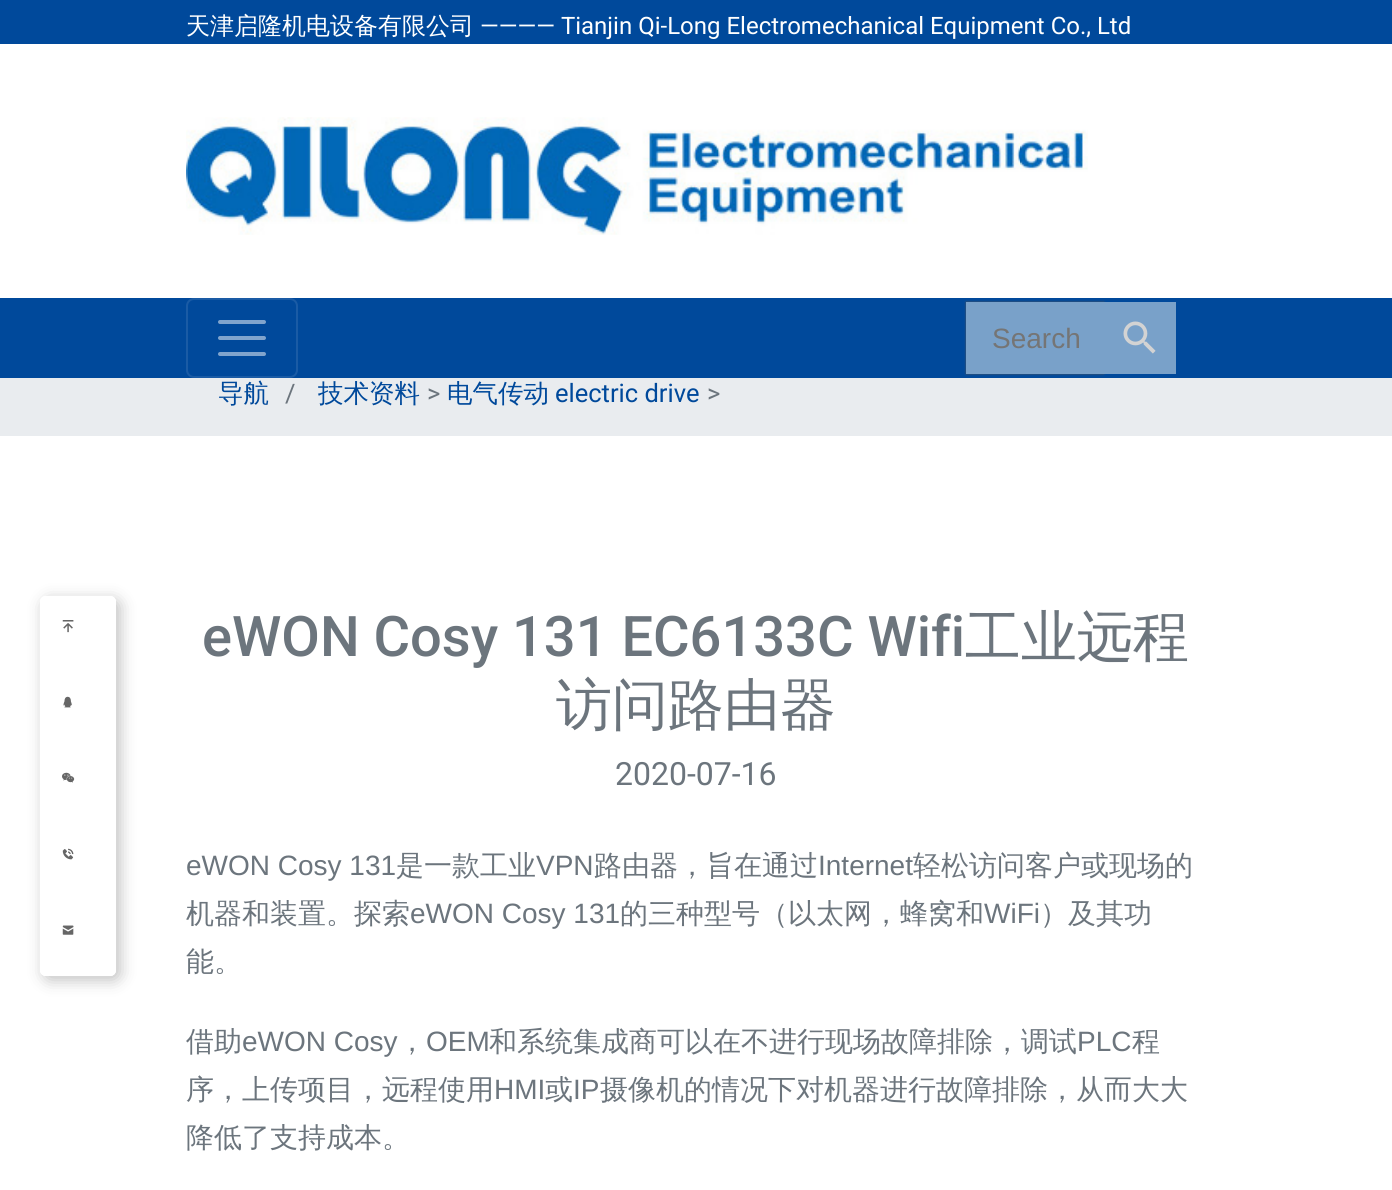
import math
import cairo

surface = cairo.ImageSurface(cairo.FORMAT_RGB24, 1392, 1190)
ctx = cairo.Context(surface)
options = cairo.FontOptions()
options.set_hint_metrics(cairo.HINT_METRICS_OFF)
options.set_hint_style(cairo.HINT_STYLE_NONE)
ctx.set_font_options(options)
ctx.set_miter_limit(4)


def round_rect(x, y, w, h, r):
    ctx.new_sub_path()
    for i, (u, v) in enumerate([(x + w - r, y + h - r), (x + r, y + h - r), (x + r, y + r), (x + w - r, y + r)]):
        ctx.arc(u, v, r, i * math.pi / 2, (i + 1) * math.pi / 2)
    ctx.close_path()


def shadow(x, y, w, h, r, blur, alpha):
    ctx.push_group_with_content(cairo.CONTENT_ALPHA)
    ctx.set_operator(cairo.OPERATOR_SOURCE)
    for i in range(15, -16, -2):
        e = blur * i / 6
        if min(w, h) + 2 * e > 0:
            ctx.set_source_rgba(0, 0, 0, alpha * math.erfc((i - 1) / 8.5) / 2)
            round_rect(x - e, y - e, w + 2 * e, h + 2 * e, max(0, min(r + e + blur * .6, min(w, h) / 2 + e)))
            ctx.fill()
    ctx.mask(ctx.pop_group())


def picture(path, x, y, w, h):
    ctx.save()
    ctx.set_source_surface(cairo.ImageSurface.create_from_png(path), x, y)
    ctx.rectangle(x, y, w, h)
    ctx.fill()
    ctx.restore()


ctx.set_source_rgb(1, 1, 1)
ctx.paint()
ctx.set_source_rgb(0, 0.286, 0.608)
ctx.rectangle(0, 0, 1392, 44)
ctx.fill()
ctx.select_font_face("WenQuanYi Zen Hei Medium")
ctx.set_font_size(24)
ctx.set_source_rgb(1, 1, 1)
ctx.move_to(186, 34)
ctx.show_text("天津启隆机电设备有限公司")
ctx.select_font_face("Roboto")
ctx.move_to(480, 34)
ctx.show_text("———— Tianjin Qi-Long Electromechanical Equipment Co., Ltd")
picture("img1.png", 186, 117, 902, 118)
ctx.set_source_rgb(0, 0.286, 0.608)
ctx.rectangle(0, 298, 1392, 80)
ctx.fill()
round_rect(187, 299, 110, 78, 7)
ctx.set_source_rgb(0.102, 0.357, 0.647)
ctx.stroke()
ctx.new_path()
ctx.move_to(220, 322)
ctx.line_to(264, 322)
ctx.move_to(220, 338)
ctx.line_to(264, 338)
ctx.move_to(220, 354)
ctx.line_to(264, 354)
ctx.set_source_rgb(0.502, 0.643, 0.804)
ctx.set_line_width(4)
ctx.set_line_cap(cairo.LINE_CAP_ROUND)
ctx.stroke()
ctx.set_source_rgb(0.333, 0.333, 0.333)
shadow(966, 302, 138, 72, 0, 1, 1)
ctx.set_source_rgb(0.475, 0.631, 0.788)
ctx.rectangle(966, 302, 210, 72)
ctx.fill()
ctx.select_font_face("Liberation Sans")
ctx.set_font_size(28)
ctx.set_source_rgb(0.459, 0.459, 0.459)
ctx.move_to(992, 348)
ctx.show_text("Search")
picture("img2.png", 1123, 321, 33, 33)
ctx.set_source_rgb(0.914, 0.925, 0.937)
ctx.rectangle(0, 378, 1392, 58)
ctx.fill()
ctx.select_font_face("WenQuanYi Zen Hei Medium")
ctx.set_font_size(25.5)
ctx.set_source_rgb(0, 0.286, 0.608)
ctx.move_to(218, 402)
ctx.show_text("导航")
ctx.select_font_face("Roboto")
ctx.set_source_rgb(0.424, 0.459, 0.49)
ctx.move_to(285, 402)
ctx.show_text("/")
ctx.select_font_face("WenQuanYi Zen Hei Medium")
ctx.set_source_rgb(0, 0.286, 0.608)
ctx.move_to(318, 402)
ctx.show_text("技术资料")
ctx.select_font_face("Roboto")
ctx.set_source_rgb(0.424, 0.459, 0.49)
ctx.move_to(427, 402)
ctx.show_text(">")
ctx.select_font_face("WenQuanYi Zen Hei Medium")
ctx.set_source_rgb(0, 0.286, 0.608)
ctx.move_to(447, 402)
ctx.show_text("电气传动")
ctx.select_font_face("Roboto")
ctx.move_to(555, 402)
ctx.show_text("electric drive")
ctx.set_source_rgb(0.424, 0.459, 0.49)
ctx.move_to(707, 402)
ctx.show_text(">")
ctx.save()
ctx.set_fill_rule(cairo.FILL_RULE_EVEN_ODD)
ctx.new_path()
ctx.move_to(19, 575)
ctx.line_to(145, 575)
ctx.line_to(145, 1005)
ctx.line_to(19, 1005)
ctx.close_path()
ctx.move_to(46, 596)
ctx.line_to(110, 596)
ctx.curve_to(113.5, 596, 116, 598.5, 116, 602)
ctx.line_to(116, 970)
ctx.curve_to(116, 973.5, 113.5, 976, 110, 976)
ctx.line_to(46, 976)
ctx.curve_to(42.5, 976, 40, 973.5, 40, 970)
ctx.line_to(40, 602)
ctx.curve_to(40, 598.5, 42.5, 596, 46, 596)
ctx.close_path()
ctx.clip()
ctx.set_source_rgb(0, 0, 0)
shadow(44, 600, 76, 380, 6, 8, 0.25)
ctx.restore()
ctx.set_source_rgb(1, 1, 1)
ctx.new_path()
ctx.move_to(46, 596)
ctx.line_to(110, 596)
ctx.curve_to(113.5, 596, 116, 598.5, 116, 602)
ctx.line_to(116, 672)
ctx.line_to(40, 672)
ctx.line_to(40, 602)
ctx.curve_to(40, 598.5, 42.5, 596, 46, 596)
ctx.close_path()
ctx.fill()
picture("img3.png", 62, 620, 12, 13)
picture("img4.png", 63, 696, 9, 12)
picture("img5.png", 62, 772, 13, 11)
picture("img6.png", 62, 848, 12, 12)
ctx.new_path()
ctx.move_to(40, 900)
ctx.line_to(116, 900)
ctx.line_to(116, 970)
ctx.curve_to(116, 973.5, 113.5, 976, 110, 976)
ctx.line_to(46, 976)
ctx.curve_to(42.5, 976, 40, 973.5, 40, 970)
ctx.close_path()
ctx.fill()
picture("img7.png", 62, 925, 12, 10)
ctx.select_font_face("Roboto Medium")
ctx.set_font_size(56)
ctx.set_source_rgb(0.424, 0.459, 0.49)
ctx.move_to(202, 656)
ctx.show_text("eWON Cosy 131 EC6133C Wifi")
ctx.select_font_face("WenQuanYi Zen Hei Medium")
ctx.move_to(965, 656)
ctx.show_text("工业远程")
ctx.move_to(556, 724)
ctx.show_text("访问路由器")
ctx.select_font_face("Roboto")
ctx.set_font_size(32)
ctx.move_to(615, 785)
ctx.show_text("2020-07-16")
ctx.select_font_face("Liberation Sans")
ctx.set_font_size(28)
ctx.move_to(186, 875)
ctx.show_text("eWON Cosy 131")
ctx.select_font_face("WenQuanYi Zen Hei Medium")
ctx.move_to(396, 875)
ctx.show_text("是一款工业")
ctx.select_font_face("Liberation Sans")
ctx.move_to(536, 875)
ctx.show_text("VPN")
ctx.select_font_face("WenQuanYi Zen Hei Medium")
ctx.move_to(594, 875)
ctx.show_text("路由器，旨在通过")
ctx.select_font_face("Liberation Sans")
ctx.move_to(818, 875)
ctx.show_text("Internet")
ctx.select_font_face("WenQuanYi Zen Hei Medium")
ctx.move_to(913, 875)
ctx.show_text("轻松访问客户或现场的")
ctx.move_to(186, 923)
ctx.show_text("机器和装置。探索")
ctx.select_font_face("Liberation Sans")
ctx.move_to(410, 923)
ctx.show_text("eWON Cosy 131")
ctx.select_font_face("WenQuanYi Zen Hei Medium")
ctx.move_to(620, 923)
ctx.show_text("的三种型号（以太网，蜂窝和")
ctx.select_font_face("Liberation Sans")
ctx.move_to(984, 923)
ctx.show_text("WiFi")
ctx.select_font_face("WenQuanYi Zen Hei Medium")
ctx.move_to(1040, 923)
ctx.show_text("）及其功")
ctx.move_to(186, 971)
ctx.show_text("能。")
ctx.move_to(186, 1051)
ctx.show_text("借助")
ctx.select_font_face("Liberation Sans")
ctx.move_to(242, 1051)
ctx.show_text("eWON Cosy")
ctx.select_font_face("WenQuanYi Zen Hei Medium")
ctx.move_to(398, 1051)
ctx.show_text("，")
ctx.select_font_face("Liberation Sans")
ctx.move_to(426, 1051)
ctx.show_text("OEM")
ctx.select_font_face("WenQuanYi Zen Hei Medium")
ctx.move_to(489, 1051)
ctx.show_text("和系统集成商可以在不进行现场故障排除，调试")
ctx.select_font_face("Liberation Sans")
ctx.move_to(1077, 1051)
ctx.show_text("PLC")
ctx.select_font_face("WenQuanYi Zen Hei Medium")
ctx.move_to(1132, 1051)
ctx.show_text("程")
ctx.move_to(186, 1099)
ctx.show_text("序，上传项目，远程使用")
ctx.select_font_face("Liberation Sans")
ctx.move_to(494, 1099)
ctx.show_text("HMI")
ctx.select_font_face("WenQuanYi Zen Hei Medium")
ctx.move_to(545, 1099)
ctx.show_text("或")
ctx.select_font_face("Liberation Sans")
ctx.move_to(573, 1099)
ctx.show_text("IP")
ctx.select_font_face("WenQuanYi Zen Hei Medium")
ctx.move_to(600, 1099)
ctx.show_text("摄像机的情况下对机器进行故障排除，从而大大")
ctx.move_to(186, 1147)
ctx.show_text("降低了支持成本。")
surface.write_to_png("page.png")
